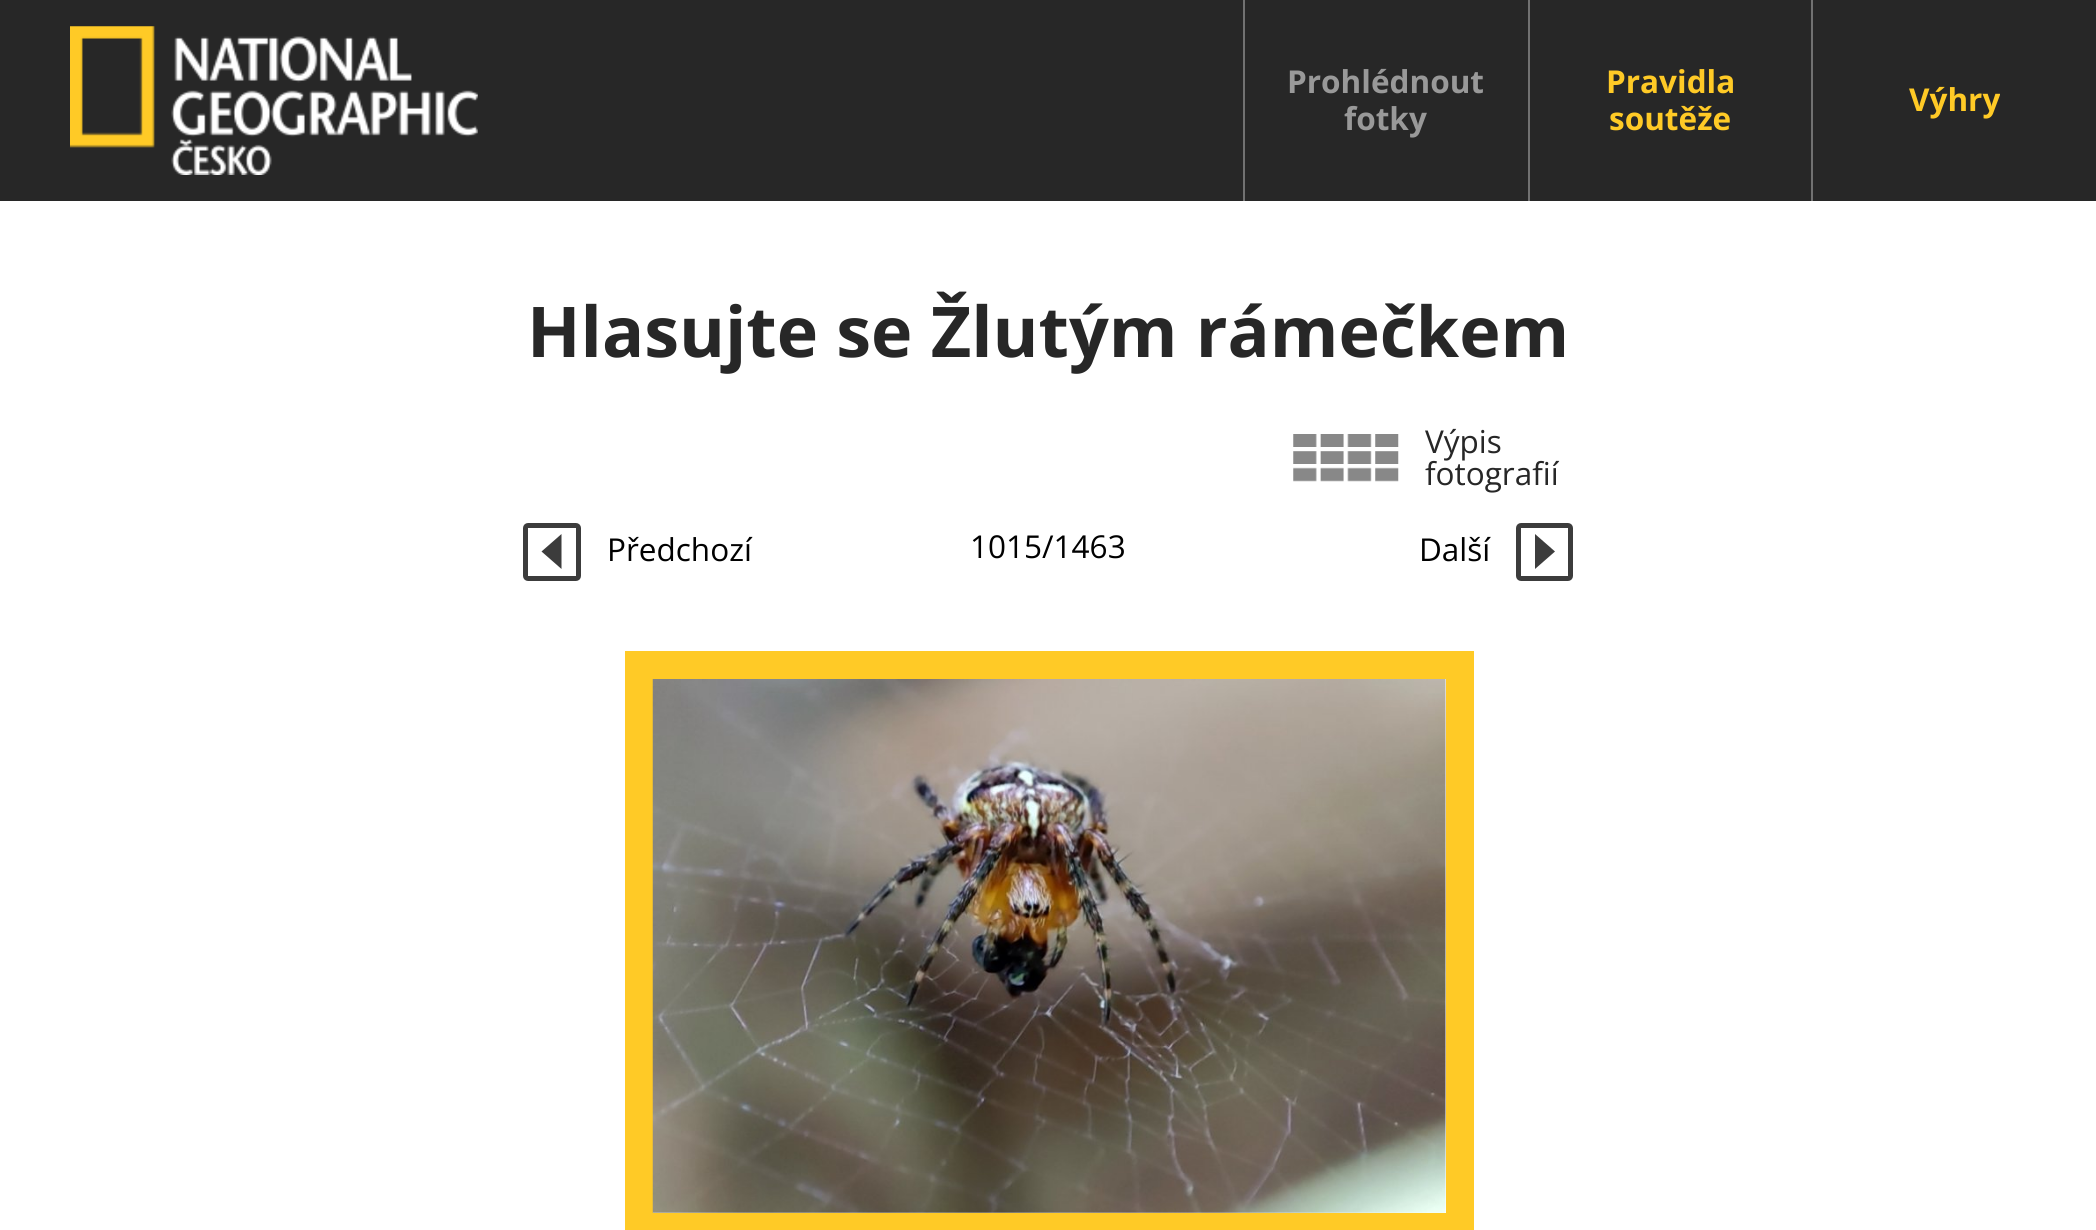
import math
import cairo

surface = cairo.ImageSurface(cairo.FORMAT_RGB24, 2096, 1230)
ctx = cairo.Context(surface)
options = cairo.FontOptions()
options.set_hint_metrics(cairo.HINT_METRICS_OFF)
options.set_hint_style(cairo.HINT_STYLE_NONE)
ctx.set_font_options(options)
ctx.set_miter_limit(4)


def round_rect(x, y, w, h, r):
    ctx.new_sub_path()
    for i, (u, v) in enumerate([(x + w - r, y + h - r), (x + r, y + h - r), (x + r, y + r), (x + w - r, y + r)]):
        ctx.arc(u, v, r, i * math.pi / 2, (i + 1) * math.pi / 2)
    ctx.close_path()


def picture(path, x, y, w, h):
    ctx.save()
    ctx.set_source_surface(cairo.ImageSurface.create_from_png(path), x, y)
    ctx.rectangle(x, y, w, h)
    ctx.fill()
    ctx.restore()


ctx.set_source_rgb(1, 1, 1)
ctx.paint()
ctx.set_source_rgb(0.153, 0.153, 0.153)
ctx.rectangle(0, 0, 2096, 201)
ctx.fill()
picture("img1.png", 70, 26, 408, 149)
ctx.set_source_rgb(0.443, 0.443, 0.443)
ctx.rectangle(1243, 0, 2, 201)
ctx.fill()
ctx.select_font_face("Open Sans", cairo.FONT_SLANT_NORMAL, cairo.FONT_WEIGHT_BOLD)
ctx.set_font_size(31.5)
ctx.set_source_rgb(0.6, 0.6, 0.6)
ctx.move_to(1287, 93)
ctx.show_text("Prohlédnout")
ctx.move_to(1344, 130)
ctx.show_text("fotky")
ctx.set_source_rgb(0.443, 0.443, 0.443)
ctx.rectangle(1528, 0, 2, 201)
ctx.fill()
ctx.set_source_rgb(1, 0.792, 0.149)
ctx.move_to(1606, 93)
ctx.show_text("Pravidla")
ctx.move_to(1609, 130)
ctx.show_text("soutěže")
ctx.set_source_rgb(0.443, 0.443, 0.443)
ctx.rectangle(1811, 0, 2, 201)
ctx.fill()
ctx.set_source_rgb(1, 0.792, 0.149)
ctx.move_to(1909, 111)
ctx.show_text("Výhry")
ctx.set_font_size(70)
ctx.set_source_rgb(0.153, 0.153, 0.153)
ctx.move_to(527, 357)
ctx.show_text("Hlasujte se Žlutým rámečkem")
picture("img2.png", 1293, 434, 106, 48)
ctx.select_font_face("Open Sans")
ctx.set_font_size(31.5)
ctx.move_to(1425, 453)
ctx.show_text("Výpis")
ctx.move_to(1425, 485)
ctx.show_text("fotografií")
ctx.set_source_rgb(0, 0, 0)
ctx.move_to(607, 561)
ctx.show_text("Předchozí")
round_rect(525.5, 525.5, 53, 53, 2.5)
ctx.set_source_rgb(0.235, 0.235, 0.235)
ctx.set_line_width(5)
ctx.stroke()
ctx.new_path()
ctx.move_to(561.5, 534)
ctx.line_to(541.5, 551.5)
ctx.line_to(561.5, 569)
ctx.close_path()
ctx.fill()
ctx.set_source_rgb(0, 0, 0)
ctx.move_to(970, 558)
ctx.show_text("1015/1463")
ctx.move_to(1419, 561)
ctx.show_text("Další")
round_rect(1518.5, 525.5, 52, 53, 2.5)
ctx.set_source_rgb(0.235, 0.235, 0.235)
ctx.stroke()
ctx.new_path()
ctx.move_to(1535, 569)
ctx.line_to(1555, 551.5)
ctx.line_to(1535, 534)
ctx.close_path()
ctx.fill()
ctx.rectangle(639, 665, 821, 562)
ctx.set_source_rgb(1, 0.792, 0.149)
ctx.set_line_width(28)
ctx.stroke()
picture("img3.png", 652, 679, 794, 534)
surface.write_to_png("page.png")
